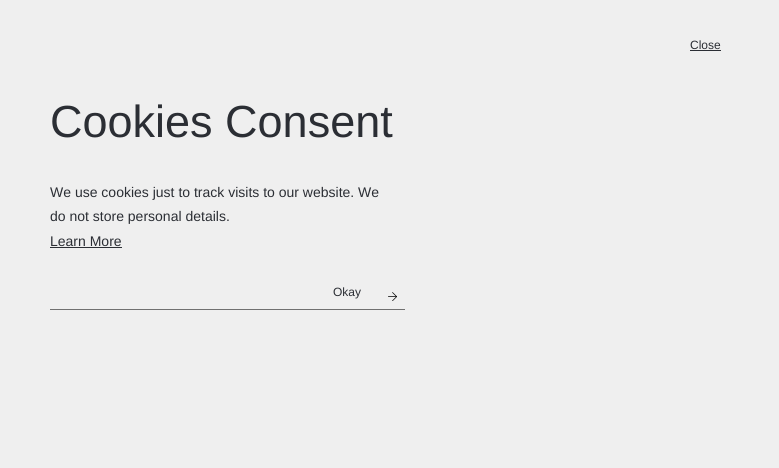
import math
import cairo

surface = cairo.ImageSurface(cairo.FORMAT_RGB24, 779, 468)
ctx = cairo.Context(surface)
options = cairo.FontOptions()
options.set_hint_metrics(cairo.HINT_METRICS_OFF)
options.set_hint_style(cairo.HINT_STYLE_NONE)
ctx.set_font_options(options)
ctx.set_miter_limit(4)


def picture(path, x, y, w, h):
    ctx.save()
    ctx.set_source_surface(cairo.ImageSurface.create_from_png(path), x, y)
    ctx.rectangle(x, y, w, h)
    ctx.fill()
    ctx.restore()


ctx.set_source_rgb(0.937, 0.937, 0.937)
ctx.paint()
ctx.select_font_face("Liberation Sans")
ctx.set_font_size(12)
ctx.set_source_rgb(0.169, 0.18, 0.204)
ctx.move_to(690, 49)
ctx.show_text("Close")
ctx.rectangle(690, 50, 31, 1)
ctx.fill()
ctx.set_font_size(45)
ctx.move_to(50, 137)
ctx.show_text("Cookies Consent")
ctx.set_font_size(14)
ctx.move_to(50, 197)
ctx.show_text("We use cookies just to track visits to our website. We")
ctx.move_to(50, 221)
ctx.show_text("do not store personal details.")
ctx.move_to(50, 246)
ctx.show_text("Learn More")
ctx.rectangle(50, 247, 72, 1)
ctx.fill()
ctx.set_source_rgb(0.439, 0.439, 0.439)
ctx.rectangle(50, 309, 355, 1)
ctx.fill()
ctx.set_font_size(12)
ctx.set_source_rgb(0.169, 0.18, 0.204)
ctx.move_to(333, 296)
ctx.show_text("Okay")
picture("img1.png", 388, 292, 9, 9)
surface.write_to_png("page.png")
